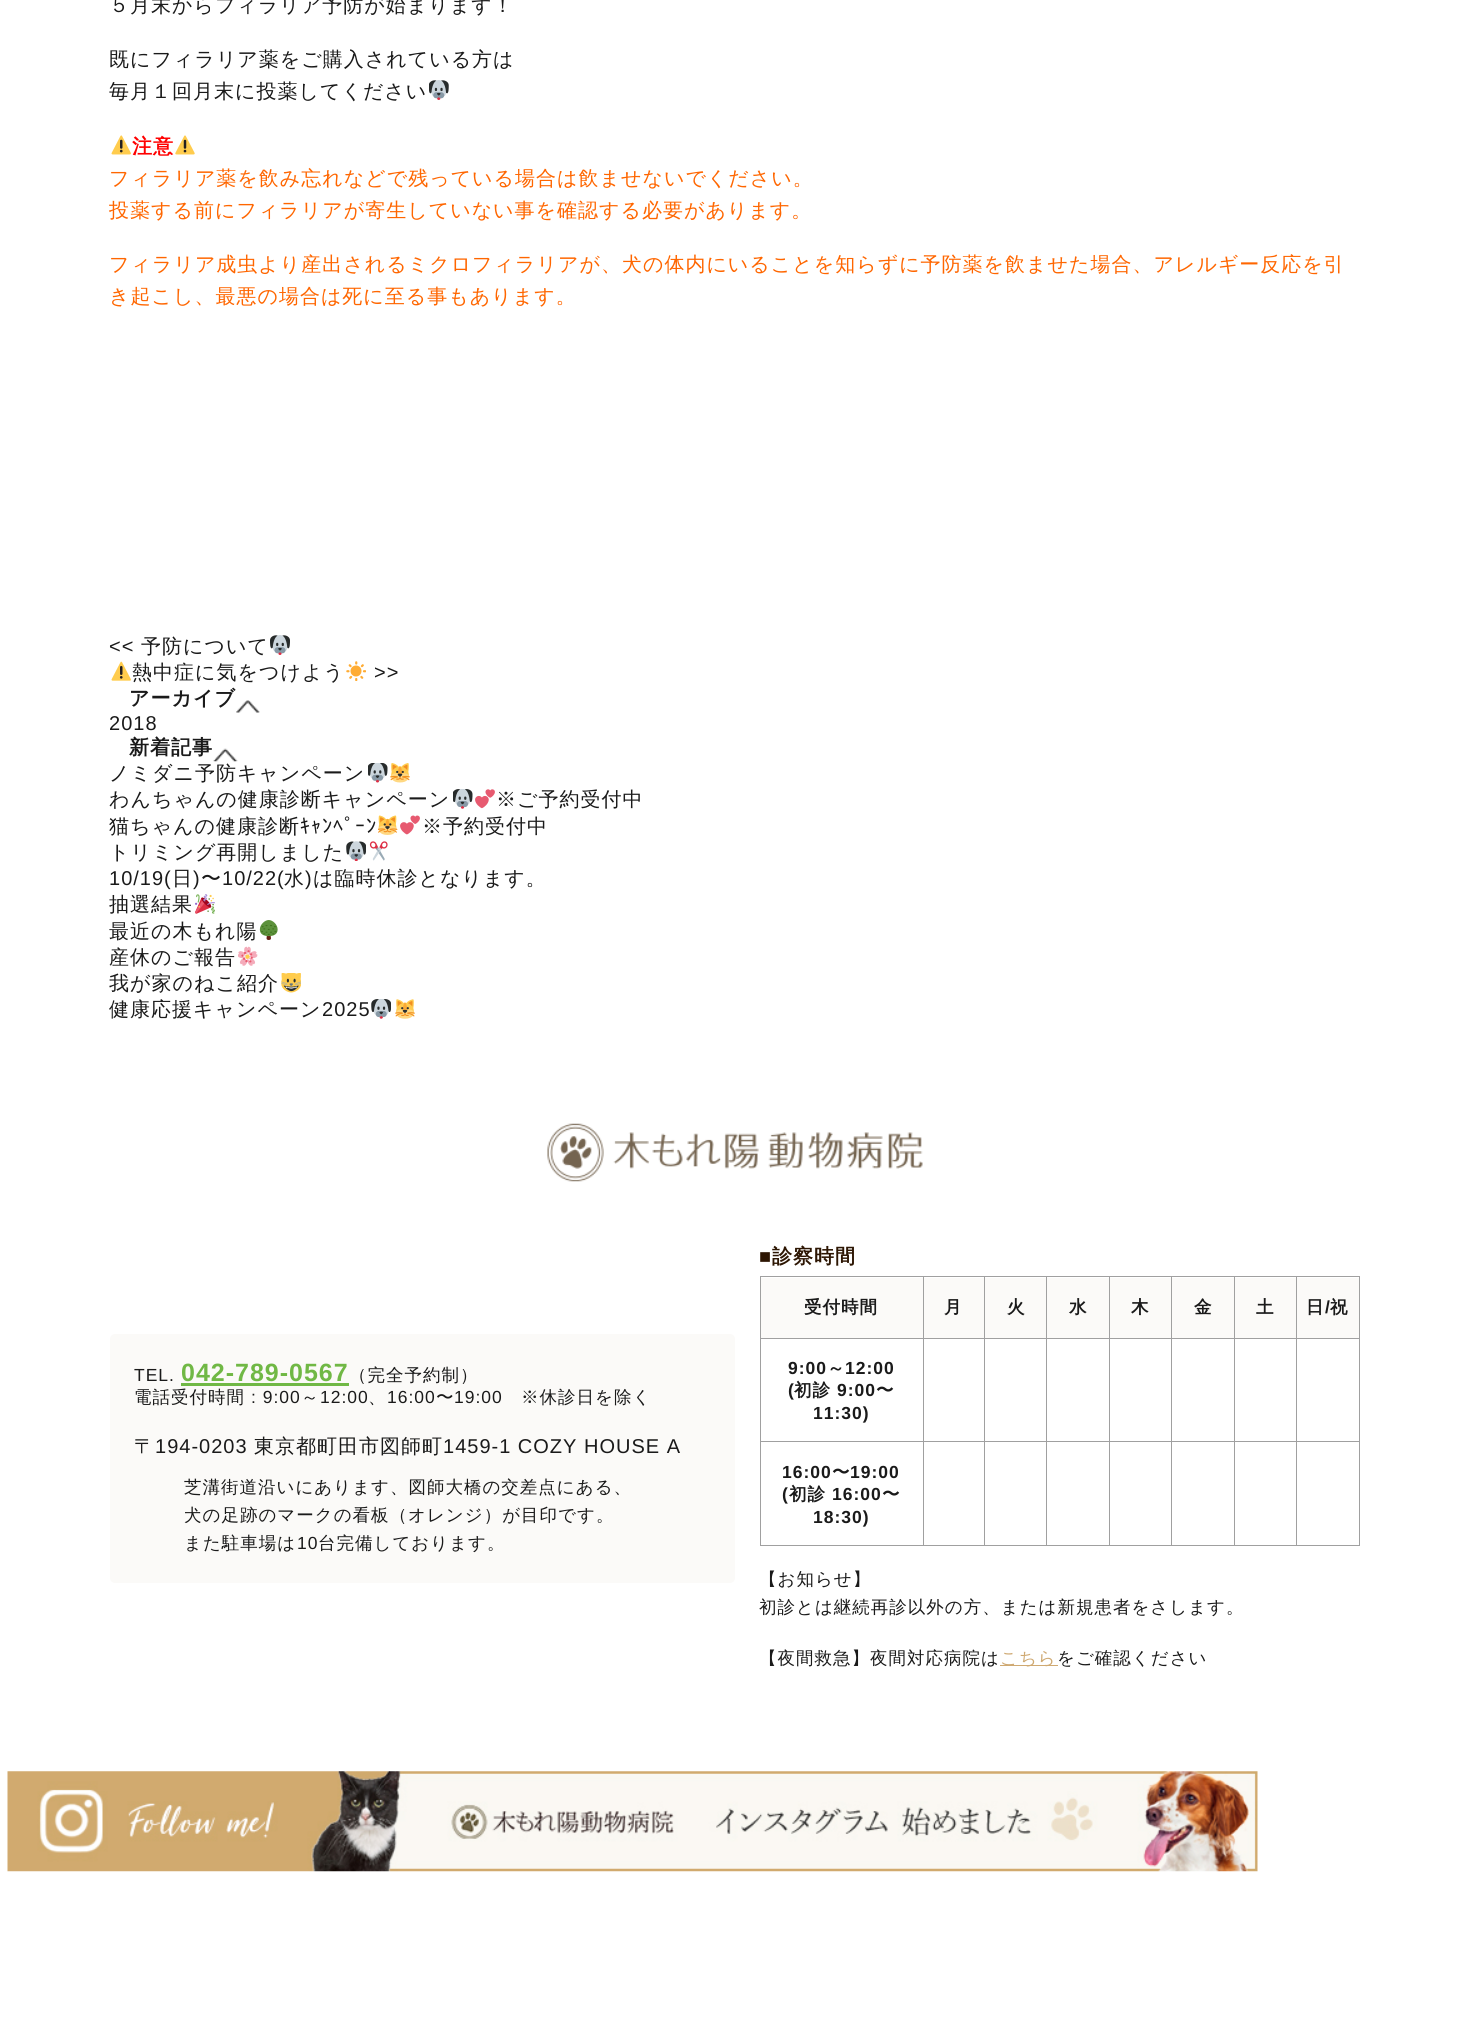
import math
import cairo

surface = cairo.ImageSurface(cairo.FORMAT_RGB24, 1468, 2023)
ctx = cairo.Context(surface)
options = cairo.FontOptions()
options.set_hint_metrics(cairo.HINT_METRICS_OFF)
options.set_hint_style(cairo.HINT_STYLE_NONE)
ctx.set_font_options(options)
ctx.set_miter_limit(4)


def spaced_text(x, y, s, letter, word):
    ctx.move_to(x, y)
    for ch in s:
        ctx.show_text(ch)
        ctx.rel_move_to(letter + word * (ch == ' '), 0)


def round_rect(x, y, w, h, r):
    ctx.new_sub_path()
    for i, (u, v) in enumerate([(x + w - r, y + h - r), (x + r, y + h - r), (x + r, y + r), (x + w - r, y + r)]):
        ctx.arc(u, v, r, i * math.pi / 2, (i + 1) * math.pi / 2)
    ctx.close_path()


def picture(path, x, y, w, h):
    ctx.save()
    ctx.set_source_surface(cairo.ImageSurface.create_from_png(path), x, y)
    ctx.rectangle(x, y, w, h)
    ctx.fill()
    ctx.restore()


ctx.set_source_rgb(1, 1, 1)
ctx.paint()
ctx.select_font_face("WenQuanYi Zen Hei Medium")
ctx.set_font_size(20)
ctx.set_source_rgb(0.102, 0.102, 0.102)
spaced_text(109, 12, "５月末からフィラリア予防が始まります！", 1, 0)
spaced_text(109, 66, "既にフィラリア薬をご購入されている方は", 1, 0)
spaced_text(109, 98, "毎月１回月末に投薬してください", 1, 0)
picture("img1.png", 429, 80, 20, 20)
picture("img2.png", 111, 135, 20, 20)
ctx.select_font_face("WenQuanYi Zen Hei", cairo.FONT_SLANT_NORMAL, cairo.FONT_WEIGHT_BOLD)
ctx.set_source_rgb(1, 0, 0)
spaced_text(132, 153, "注意", 1, 0)
picture("img3.png", 175, 135, 20, 20)
ctx.select_font_face("WenQuanYi Zen Hei Medium")
ctx.set_source_rgb(1, 0.4, 0)
spaced_text(109, 185, "フィラリア薬を飲み忘れなどで残っている場合は飲ませないでください。", 1, 0)
spaced_text(109, 217, "投薬する前にフィラリアが寄生していない事を確認する必要があります。", 1, 0)
spaced_text(109, 271, "フィラリア成虫より産出されるミクロフィラリアが、犬の体内にいることを知らずに予防薬を飲ませた場合、アレルギー反応を引", 1, 0)
spaced_text(109, 303, "き起こし、最悪の場合は死に至る事もあります。", 1, 0)
ctx.select_font_face("Liberation Sans")
ctx.set_source_rgb(0.102, 0.102, 0.102)
spaced_text(109, 653, "<<", 1, 0)
ctx.select_font_face("WenQuanYi Zen Hei Medium")
spaced_text(141, 653, "予防について", 1, 0)
picture("img4.png", 270, 635, 20, 20)
picture("img5.png", 111, 661, 20, 20)
spaced_text(132, 679, "熱中症に気をつけよう", 1, 0)
picture("img6.png", 346, 661, 20, 20)
ctx.select_font_face("Liberation Sans")
spaced_text(374, 679, ">>", 1, 0)
ctx.select_font_face("WenQuanYi Zen Hei", cairo.FONT_SLANT_NORMAL, cairo.FONT_WEIGHT_BOLD)
spaced_text(129, 705, "アーカイブ", 1, 0)
picture("img7.png", 236, 700, 24, 13)
ctx.select_font_face("Liberation Sans")
spaced_text(109, 730, "2018", 1, 0)
ctx.select_font_face("WenQuanYi Zen Hei", cairo.FONT_SLANT_NORMAL, cairo.FONT_WEIGHT_BOLD)
spaced_text(129, 754, "新着記事", 1, 0)
picture("img8.png", 213, 748, 25, 14)
ctx.select_font_face("WenQuanYi Zen Hei Medium")
spaced_text(109, 780, "ノミダニ予防キャンペーン", 1, 0)
picture("img9.png", 368, 763, 20, 20)
picture("img10.png", 390, 763, 20, 20)
spaced_text(109, 806, "わんちゃんの健康診断キャンペーン", 1, 0)
picture("img11.png", 453, 789, 20, 20)
picture("img12.png", 475, 789, 20, 20)
spaced_text(496, 806, "※ご予約受付中", 1, 0)
spaced_text(109, 833, "猫ちゃんの健康診断", 1, 0)
ctx.select_font_face("IPAPGothic")
spaced_text(300, 833, "ｷｬﾝﾍﾟｰﾝ", 1, 0)
picture("img13.png", 378, 815, 20, 20)
picture("img14.png", 400, 815, 20, 20)
ctx.select_font_face("WenQuanYi Zen Hei Medium")
spaced_text(422, 833, "※予約受付中", 1, 0)
spaced_text(109, 859, "トリミング再開しました", 1, 0)
picture("img15.png", 346, 841, 20, 20)
picture("img16.png", 369, 841, 19, 20)
ctx.select_font_face("Liberation Sans")
spaced_text(109, 885, "10/19(", 1, 0)
ctx.select_font_face("WenQuanYi Zen Hei Medium")
spaced_text(172, 885, "日", 1, 0)
ctx.select_font_face("Liberation Sans")
spaced_text(193, 885, ")", 1, 0)
ctx.select_font_face("WenQuanYi Zen Hei Medium")
spaced_text(201, 885, "〜", 1, 0)
ctx.select_font_face("Liberation Sans")
spaced_text(222, 885, "10/22(", 1, 0)
ctx.select_font_face("WenQuanYi Zen Hei Medium")
spaced_text(284, 885, "水", 1, 0)
ctx.select_font_face("Liberation Sans")
spaced_text(305, 885, ")", 1, 0)
ctx.select_font_face("WenQuanYi Zen Hei Medium")
spaced_text(313, 885, "は臨時休診となります。", 1, 0)
spaced_text(109, 911, "抽選結果", 1, 0)
picture("img17.png", 195, 894, 20, 20)
spaced_text(109, 938, "最近の木もれ陽", 1, 0)
picture("img18.png", 259, 920, 19, 20)
spaced_text(109, 964, "産休のご報告", 1, 0)
picture("img19.png", 238, 946, 20, 20)
spaced_text(109, 990, "我が家のねこ紹介", 1, 0)
picture("img20.png", 281, 973, 20, 20)
spaced_text(109, 1016, "健康応援キャンペーン", 1, 0)
ctx.select_font_face("Liberation Sans")
spaced_text(322, 1016, "2025", 1, 0)
picture("img21.png", 371, 999, 20, 20)
picture("img22.png", 395, 999, 20, 20)
picture("img23.png", 547, 1123, 376, 59)
ctx.set_source_rgb(0.984, 0.98, 0.969)
round_rect(110, 1334, 625, 249, 5)
ctx.fill()
ctx.set_font_size(17.5)
ctx.set_source_rgb(0.102, 0.102, 0.102)
spaced_text(134, 1381, "TEL.", 1, 0)
ctx.select_font_face("Liberation Sans", cairo.FONT_SLANT_NORMAL, cairo.FONT_WEIGHT_BOLD)
ctx.set_font_size(25)
ctx.set_source_rgb(0.439, 0.722, 0.271)
spaced_text(181, 1381, "042-789-0567", 1, 0)
ctx.rectangle(181, 1383, 168, 3)
ctx.fill()
ctx.select_font_face("WenQuanYi Zen Hei Medium")
ctx.set_font_size(17.5)
ctx.set_source_rgb(0.102, 0.102, 0.102)
spaced_text(349, 1381, "（完全予約制）", 1, 0)
spaced_text(134, 1403, "電話受付時間", 1, 0)
ctx.select_font_face("Liberation Sans")
spaced_text(251, 1403, ": 9:00", 1, 0)
ctx.select_font_face("WenQuanYi Zen Hei Medium")
spaced_text(301, 1403, "～", 1, 0)
ctx.select_font_face("Liberation Sans")
spaced_text(320, 1403, "12:00", 1, 0)
spaced_text(387, 1403, "16:00", 1, 0)
ctx.select_font_face("WenQuanYi Zen Hei Medium")
spaced_text(436, 1403, "〜", 1, 0)
ctx.select_font_face("Liberation Sans")
spaced_text(454, 1403, "19:00", 1, 0)
ctx.select_font_face("WenQuanYi Zen Hei Medium")
spaced_text(521, 1403, "※休診日を除く", 1, 0)
spaced_text(368, 1403, "、", 1, 0)
ctx.set_font_size(20)
spaced_text(134, 1453, "〒", 1, 0)
ctx.select_font_face("Liberation Sans")
spaced_text(155, 1453, "194-0203", 1, 0)
ctx.select_font_face("WenQuanYi Zen Hei Medium")
spaced_text(254, 1453, "東京都町田市図師町", 1, 0)
ctx.select_font_face("Liberation Sans")
spaced_text(443, 1453, "1459-1 COZY HOUSE A", 1, 0)
ctx.select_font_face("WenQuanYi Zen Hei Medium")
ctx.set_font_size(17.5)
spaced_text(184, 1493, "芝溝街道沿いにあります、図師大橋の交差点にある、", 1, 0)
spaced_text(184, 1521, "犬の足跡のマークの看板（オレンジ）が目印です。", 1, 0)
spaced_text(184, 1549, "また駐車場は", 1, 0)
ctx.select_font_face("Liberation Sans")
spaced_text(297, 1549, "10", 1, 0)
ctx.select_font_face("WenQuanYi Zen Hei Medium")
spaced_text(318, 1549, "台完備しております。", 1, 0)
ctx.select_font_face("Liberation Sans", cairo.FONT_SLANT_NORMAL, cairo.FONT_WEIGHT_BOLD)
ctx.set_font_size(20)
ctx.set_source_rgb(0.176, 0.086, 0.012)
spaced_text(759, 1263, "■", 1, 0)
ctx.select_font_face("WenQuanYi Zen Hei", cairo.FONT_SLANT_NORMAL, cairo.FONT_WEIGHT_BOLD)
spaced_text(772, 1263, "診察時間", 1, 0)
ctx.set_source_rgb(0.627, 0.627, 0.627)
ctx.rectangle(760, 1276, 600, 1)
ctx.fill()
ctx.rectangle(1359, 1276, 1, 270)
ctx.fill()
ctx.rectangle(760, 1545, 600, 1)
ctx.fill()
ctx.rectangle(760, 1276, 1, 270)
ctx.fill()
ctx.set_source_rgb(0.984, 0.98, 0.969)
ctx.rectangle(761, 1278, 162, 60)
ctx.fill()
ctx.set_font_size(17.5)
ctx.set_source_rgb(0.102, 0.102, 0.102)
spaced_text(804, 1313, "受付時間", 1, 0)
ctx.set_source_rgb(0.984, 0.98, 0.969)
ctx.rectangle(924, 1278, 60, 60)
ctx.fill()
ctx.set_source_rgb(0.627, 0.627, 0.627)
ctx.rectangle(1296, 1338, 64, 1)
ctx.fill()
ctx.rectangle(1296, 1441, 64, 1)
ctx.fill()
ctx.rectangle(1296, 1441, 1, 105)
ctx.fill()
ctx.rectangle(1234, 1441, 64, 1)
ctx.fill()
ctx.rectangle(1296, 1338, 1, 105)
ctx.fill()
ctx.rectangle(1234, 1338, 64, 1)
ctx.fill()
ctx.rectangle(1234, 1441, 1, 105)
ctx.fill()
ctx.rectangle(1171, 1441, 64, 1)
ctx.fill()
ctx.rectangle(1234, 1338, 1, 105)
ctx.fill()
ctx.rectangle(1171, 1338, 64, 1)
ctx.fill()
ctx.rectangle(1171, 1441, 1, 105)
ctx.fill()
ctx.rectangle(1109, 1441, 64, 1)
ctx.fill()
ctx.rectangle(1171, 1338, 1, 105)
ctx.fill()
ctx.rectangle(1109, 1338, 64, 1)
ctx.fill()
ctx.rectangle(1109, 1441, 1, 105)
ctx.fill()
ctx.rectangle(1046, 1441, 64, 1)
ctx.fill()
ctx.rectangle(1109, 1338, 1, 105)
ctx.fill()
ctx.rectangle(1046, 1338, 64, 1)
ctx.fill()
ctx.rectangle(1046, 1441, 1, 105)
ctx.fill()
ctx.rectangle(984, 1441, 64, 1)
ctx.fill()
ctx.rectangle(1046, 1338, 1, 105)
ctx.fill()
ctx.rectangle(984, 1338, 64, 1)
ctx.fill()
ctx.rectangle(984, 1441, 1, 105)
ctx.fill()
ctx.rectangle(923, 1441, 62, 1)
ctx.fill()
ctx.rectangle(984, 1338, 1, 105)
ctx.fill()
ctx.rectangle(923, 1338, 62, 1)
ctx.fill()
ctx.rectangle(923, 1441, 1, 105)
ctx.fill()
ctx.rectangle(760, 1441, 164, 1)
ctx.fill()
ctx.rectangle(923, 1338, 1, 105)
ctx.fill()
ctx.rectangle(760, 1338, 164, 1)
ctx.fill()
ctx.rectangle(923, 1276, 1, 63)
ctx.fill()
ctx.set_source_rgb(0.102, 0.102, 0.102)
spaced_text(944, 1313, "月", 1, 0)
ctx.set_source_rgb(0.984, 0.98, 0.969)
ctx.rectangle(985, 1278, 124, 60)
ctx.fill()
ctx.set_source_rgb(0.627, 0.627, 0.627)
ctx.rectangle(984, 1276, 1, 63)
ctx.fill()
ctx.set_source_rgb(0.102, 0.102, 0.102)
spaced_text(1007, 1313, "火", 1, 0)
ctx.set_source_rgb(0.627, 0.627, 0.627)
ctx.rectangle(1046, 1276, 1, 63)
ctx.fill()
ctx.set_source_rgb(0.102, 0.102, 0.102)
spaced_text(1069, 1313, "水", 1, 0)
ctx.set_source_rgb(0.984, 0.98, 0.969)
ctx.rectangle(1110, 1278, 61, 60)
ctx.fill()
ctx.set_source_rgb(0.627, 0.627, 0.627)
ctx.rectangle(1109, 1276, 1, 63)
ctx.fill()
ctx.set_source_rgb(0.102, 0.102, 0.102)
spaced_text(1131, 1313, "木", 1, 0)
ctx.set_source_rgb(0.984, 0.98, 0.969)
ctx.rectangle(1172, 1278, 62, 60)
ctx.fill()
ctx.set_source_rgb(0.627, 0.627, 0.627)
ctx.rectangle(1171, 1276, 1, 63)
ctx.fill()
ctx.set_source_rgb(0.102, 0.102, 0.102)
spaced_text(1194, 1313, "金", 1, 0)
ctx.set_source_rgb(0.984, 0.98, 0.969)
ctx.rectangle(1235, 1278, 61, 60)
ctx.fill()
ctx.set_source_rgb(0.627, 0.627, 0.627)
ctx.rectangle(1234, 1276, 1, 63)
ctx.fill()
ctx.set_source_rgb(0.102, 0.102, 0.102)
spaced_text(1256, 1313, "土", 1, 0)
ctx.set_source_rgb(0.984, 0.98, 0.969)
ctx.rectangle(1297, 1278, 62, 60)
ctx.fill()
ctx.set_source_rgb(0.627, 0.627, 0.627)
ctx.rectangle(1296, 1276, 1, 63)
ctx.fill()
ctx.set_source_rgb(0.102, 0.102, 0.102)
spaced_text(1306, 1313, "日", 1, 0)
ctx.select_font_face("Liberation Sans", cairo.FONT_SLANT_NORMAL, cairo.FONT_WEIGHT_BOLD)
spaced_text(1325, 1313, "/", 1, 0)
ctx.select_font_face("WenQuanYi Zen Hei", cairo.FONT_SLANT_NORMAL, cairo.FONT_WEIGHT_BOLD)
spaced_text(1330, 1313, "祝", 1, 0)
ctx.select_font_face("Liberation Sans", cairo.FONT_SLANT_NORMAL, cairo.FONT_WEIGHT_BOLD)
spaced_text(788, 1374, "9:00", 1, 0)
ctx.select_font_face("WenQuanYi Zen Hei", cairo.FONT_SLANT_NORMAL, cairo.FONT_WEIGHT_BOLD)
spaced_text(827, 1374, "～", 1, 0)
ctx.select_font_face("Liberation Sans", cairo.FONT_SLANT_NORMAL, cairo.FONT_WEIGHT_BOLD)
spaced_text(845, 1374, "12:00", 1, 0)
spaced_text(788, 1396, "(", 1, 0)
ctx.select_font_face("WenQuanYi Zen Hei", cairo.FONT_SLANT_NORMAL, cairo.FONT_WEIGHT_BOLD)
spaced_text(794, 1396, "初診", 1, 0)
ctx.select_font_face("Liberation Sans", cairo.FONT_SLANT_NORMAL, cairo.FONT_WEIGHT_BOLD)
spaced_text(837, 1396, "9:00", 1, 0)
ctx.select_font_face("WenQuanYi Zen Hei", cairo.FONT_SLANT_NORMAL, cairo.FONT_WEIGHT_BOLD)
spaced_text(876, 1396, "〜", 1, 0)
ctx.select_font_face("Liberation Sans", cairo.FONT_SLANT_NORMAL, cairo.FONT_WEIGHT_BOLD)
spaced_text(813, 1419, "11:30)", 1, 0)
spaced_text(782, 1478, "16:00", 1, 0)
ctx.select_font_face("WenQuanYi Zen Hei", cairo.FONT_SLANT_NORMAL, cairo.FONT_WEIGHT_BOLD)
spaced_text(832, 1478, "〜", 1, 0)
ctx.select_font_face("Liberation Sans", cairo.FONT_SLANT_NORMAL, cairo.FONT_WEIGHT_BOLD)
spaced_text(850, 1478, "19:00", 1, 0)
spaced_text(782, 1500, "(", 1, 0)
ctx.select_font_face("WenQuanYi Zen Hei", cairo.FONT_SLANT_NORMAL, cairo.FONT_WEIGHT_BOLD)
spaced_text(789, 1500, "初診", 1, 0)
ctx.select_font_face("Liberation Sans", cairo.FONT_SLANT_NORMAL, cairo.FONT_WEIGHT_BOLD)
spaced_text(832, 1500, "16:00", 1, 0)
ctx.select_font_face("WenQuanYi Zen Hei", cairo.FONT_SLANT_NORMAL, cairo.FONT_WEIGHT_BOLD)
spaced_text(882, 1500, "〜", 1, 0)
ctx.select_font_face("Liberation Sans", cairo.FONT_SLANT_NORMAL, cairo.FONT_WEIGHT_BOLD)
spaced_text(813, 1523, "18:30)", 1, 0)
ctx.select_font_face("WenQuanYi Zen Hei Medium")
spaced_text(759, 1585, "【お知らせ】", 1, 0)
spaced_text(759, 1613, "初診とは継続再診以外の方、または新規患者をさします。", 1, 0)
spaced_text(759, 1664, "【夜間救急】夜間対応病院は", 1, 0)
ctx.set_source_rgb(0.812, 0.663, 0.447)
ctx.rectangle(1000, 1665, 58, 1)
ctx.fill()
spaced_text(1000, 1664, "こちら", 1, 0)
ctx.set_source_rgb(0.102, 0.102, 0.102)
spaced_text(1057, 1664, "をご確認ください", 1, 0)
picture("img24.png", 7, 1771, 1251, 101)
surface.write_to_png("page.png")
